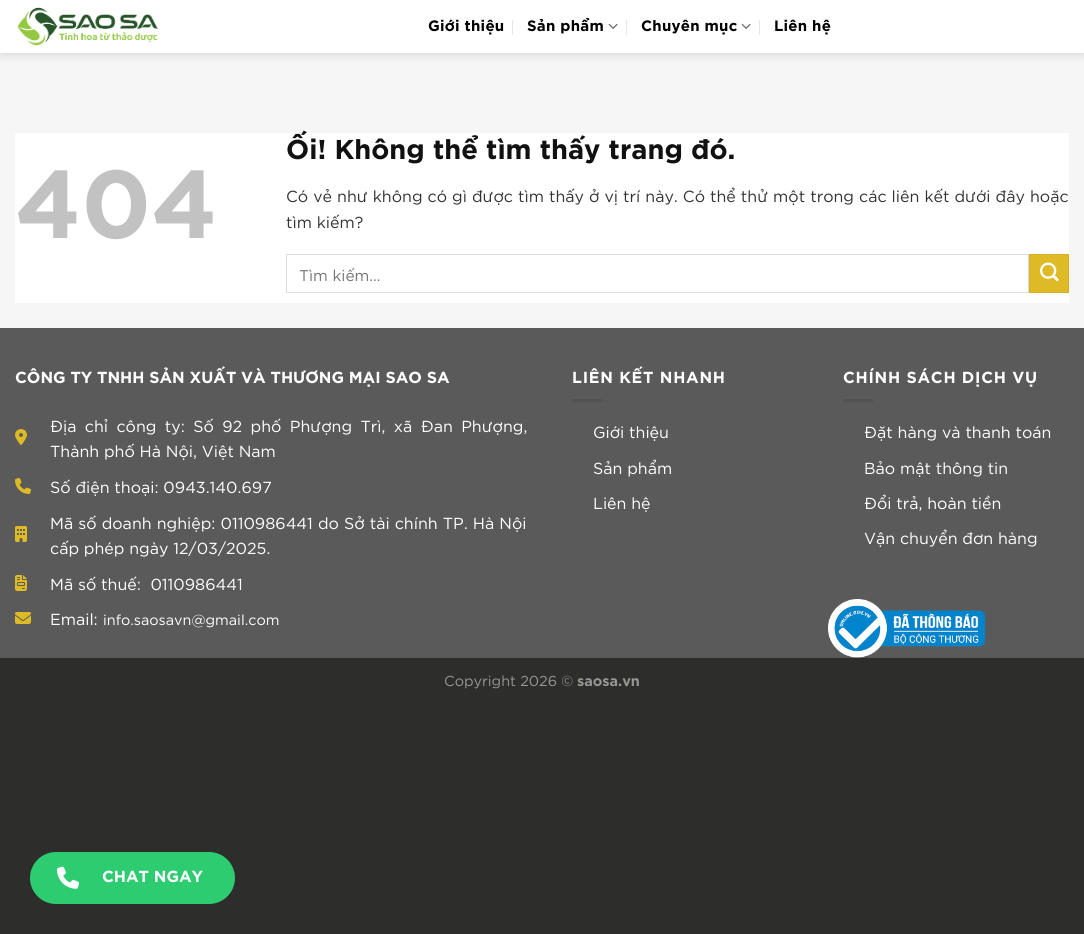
import math
import cairo

surface = cairo.ImageSurface(cairo.FORMAT_RGB24, 1084, 934)
ctx = cairo.Context(surface)
options = cairo.FontOptions()
options.set_hint_metrics(cairo.HINT_METRICS_OFF)
options.set_hint_style(cairo.HINT_STYLE_NONE)
ctx.set_font_options(options)
ctx.set_miter_limit(4)


def spaced_text(x, y, s, letter, word):
    ctx.move_to(x, y)
    for ch in s:
        ctx.show_text(ch)
        ctx.rel_move_to(letter + word * (ch == ' '), 0)


def round_rect(x, y, w, h, r):
    ctx.new_sub_path()
    for i, (u, v) in enumerate([(x + w - r, y + h - r), (x + r, y + h - r), (x + r, y + r), (x + w - r, y + r)]):
        ctx.arc(u, v, r, i * math.pi / 2, (i + 1) * math.pi / 2)
    ctx.close_path()


def shadow(x, y, w, h, r, blur, alpha):
    ctx.push_group_with_content(cairo.CONTENT_ALPHA)
    ctx.set_operator(cairo.OPERATOR_SOURCE)
    for i in range(15, -16, -2):
        e = blur * i / 6
        if min(w, h) + 2 * e > 0:
            ctx.set_source_rgba(0, 0, 0, alpha * math.erfc((i - 1) / 8.5) / 2)
            round_rect(x - e, y - e, w + 2 * e, h + 2 * e, max(0, min(r + e + blur * .6, min(w, h) / 2 + e)))
            ctx.fill()
    ctx.mask(ctx.pop_group())


def picture(path, x, y, w, h):
    ctx.save()
    ctx.set_source_surface(cairo.ImageSurface.create_from_png(path), x, y)
    ctx.rectangle(x, y, w, h)
    ctx.fill()
    ctx.restore()


ctx.set_source_rgb(0.176, 0.176, 0.173)
ctx.paint()
ctx.set_source_rgb(0.961, 0.961, 0.961)
ctx.rectangle(0, 53, 1084, 275)
ctx.fill()
ctx.set_source_rgb(0, 0, 0)
shadow(1, 1, 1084, 53, 0, 5, 0.15)
ctx.set_source_rgb(1, 1, 1)
ctx.rectangle(0, 0, 1084, 53)
ctx.fill()
picture("img1.png", 17, 7, 141, 39)
ctx.select_font_face("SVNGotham", cairo.FONT_SLANT_NORMAL, cairo.FONT_WEIGHT_BOLD)
ctx.set_font_size(15)
ctx.set_source_rgb(0, 0, 0)
spaced_text(428, 31, "Giới thiệu", 0.25, 0)
ctx.set_source_rgb(0.902, 0.902, 0.902)
ctx.rectangle(512, 20, 1, 15)
ctx.fill()
ctx.set_source_rgb(0, 0, 0)
spaced_text(527, 31, "Sản phẩm", 0.25, 0)
picture("img2.png", 608, 23, 10, 6)
ctx.set_source_rgb(0.902, 0.902, 0.902)
ctx.rectangle(626, 20, 1, 15)
ctx.fill()
ctx.set_source_rgb(0, 0, 0)
spaced_text(641, 31, "Chuyên mục", 0.25, 0)
picture("img2.png", 741, 23, 10, 6)
ctx.set_source_rgb(0.902, 0.902, 0.902)
ctx.rectangle(759, 20, 1, 15)
ctx.fill()
ctx.set_source_rgb(0, 0, 0)
spaced_text(774, 31, "Liên hệ", 0.25, 0)
ctx.set_source_rgb(1, 1, 1)
ctx.rectangle(15, 133, 1054, 170)
ctx.fill()
ctx.set_font_size(96)
ctx.set_source_rgb(0.761, 0.761, 0.761)
ctx.move_to(15, 238)
ctx.show_text("404")
ctx.set_font_size(27.25)
ctx.set_source_rgb(0.067, 0.067, 0.067)
ctx.move_to(286, 159)
ctx.show_text("Ối! Không thể tìm thấy trang đó.")
ctx.select_font_face("SVNGotham")
ctx.set_font_size(16)
ctx.set_source_rgb(0.2, 0.2, 0.2)
spaced_text(286, 202, "Có vẻ như không có gì được tìm thấy ở vị trí này. Có thể thử một trong các liên kết dưới đây hoặc", 0, 0.25)
ctx.move_to(286, 228)
ctx.show_text("tìm kiếm?")
ctx.rectangle(286.5, 254.5, 742, 38)
ctx.set_source_rgb(0.867, 0.867, 0.867)
ctx.set_line_width(1)
ctx.stroke()
ctx.set_font_size(15.5)
ctx.set_source_rgb(0.459, 0.459, 0.459)
ctx.move_to(299, 281)
ctx.show_text("Tìm kiếm…")
ctx.set_source_rgb(0.875, 0.729, 0.153)
ctx.rectangle(1029.5, 254.5, 39, 38)
ctx.fill_preserve()
ctx.set_source_rgb(0.831, 0.694, 0.145)
ctx.stroke()
picture("img3.png", 1040, 262, 19, 20)
ctx.set_source_rgb(0.353, 0.353, 0.353)
ctx.rectangle(0, 328, 1084, 330)
ctx.fill()
ctx.select_font_face("SVNGotham", cairo.FONT_SLANT_NORMAL, cairo.FONT_WEIGHT_BOLD)
ctx.set_font_size(16)
ctx.set_source_rgb(1, 1, 1)
ctx.move_to(15, 383)
ctx.show_text("CÔNG TY TNHH SẢN XUẤT VÀ THƯƠNG MẠI SAO SA")
ctx.select_font_face("SVNGotham")
spaced_text(50, 432, "Địa chỉ công ty: Số 92 phố Phượng Trì, xã Đan Phượng,", 0, 3.6)
picture("img4.png", 15, 429, 12, 16)
ctx.move_to(50, 457)
ctx.show_text("Thành phố Hà Nội, Việt Nam")
picture("img5.png", 15, 478, 16, 16)
ctx.move_to(50, 493)
ctx.show_text("Số điện thoại: 0943.140.697")
picture("img6.png", 15, 526, 12, 16)
spaced_text(50, 529, "Mã số doanh nghiệp: 0110986441 do Sở tài chính TP. Hà Nội", 0, 0.3)
ctx.move_to(50, 554)
ctx.show_text("cấp phép ngày 12/03/2025.")
picture("img7.png", 15, 575, 12, 16)
ctx.move_to(50, 590)
ctx.show_text("Mã số thuế:  0110986441")
picture("img8.png", 15, 612, 16, 12)
ctx.move_to(50, 625)
ctx.show_text("Email:")
ctx.set_font_size(14.4)
ctx.move_to(103, 625)
ctx.show_text("info.saosavn@gmail.com")
ctx.select_font_face("SVNGotham", cairo.FONT_SLANT_NORMAL, cairo.FONT_WEIGHT_BOLD)
ctx.set_font_size(16)
spaced_text(572, 383, "LIÊN KẾT NHANH", 0.75, 0)
ctx.set_source_rgb(0.318, 0.318, 0.318)
ctx.rectangle(572, 399, 30, 3)
ctx.fill()
ctx.select_font_face("SVNGotham")
ctx.set_source_rgb(1, 1, 1)
ctx.move_to(593, 438)
ctx.show_text("Giới thiệu")
ctx.move_to(593, 474)
ctx.show_text("Sản phẩm")
ctx.move_to(593, 509)
ctx.show_text("Liên hệ")
ctx.select_font_face("SVNGotham", cairo.FONT_SLANT_NORMAL, cairo.FONT_WEIGHT_BOLD)
spaced_text(843, 383, "CHÍNH SÁCH DỊCH VỤ", 0.75, 0)
ctx.set_source_rgb(0.318, 0.318, 0.318)
ctx.rectangle(843, 399, 30, 3)
ctx.fill()
ctx.select_font_face("SVNGotham")
ctx.set_source_rgb(1, 1, 1)
ctx.move_to(864, 438)
ctx.show_text("Đặt hàng và thanh toán")
ctx.move_to(864, 474)
ctx.show_text("Bảo mật thông tin")
ctx.move_to(864, 509)
ctx.show_text("Đổi trả, hoàn tiền")
ctx.move_to(864, 544)
ctx.show_text("Vận chuyển đơn hàng")
picture("img9.png", 828, 599, 157, 59)
ctx.set_font_size(14.4)
ctx.set_source_rgb(0.588, 0.588, 0.588)
ctx.move_to(444, 686)
ctx.show_text("Copyright 2026 ©")
ctx.select_font_face("SVNGotham", cairo.FONT_SLANT_NORMAL, cairo.FONT_WEIGHT_BOLD)
ctx.move_to(577, 686)
ctx.show_text("saosa.vn")
ctx.set_source_rgb(0.18, 0.8, 0.443)
round_rect(30, 852, 205, 52, 26)
ctx.fill()
picture("img10.png", 57, 866, 22, 23)
ctx.set_font_size(16)
ctx.set_source_rgb(1, 1, 1)
ctx.move_to(102, 882)
ctx.show_text("CHAT NGAY")
surface.write_to_png("page.png")
